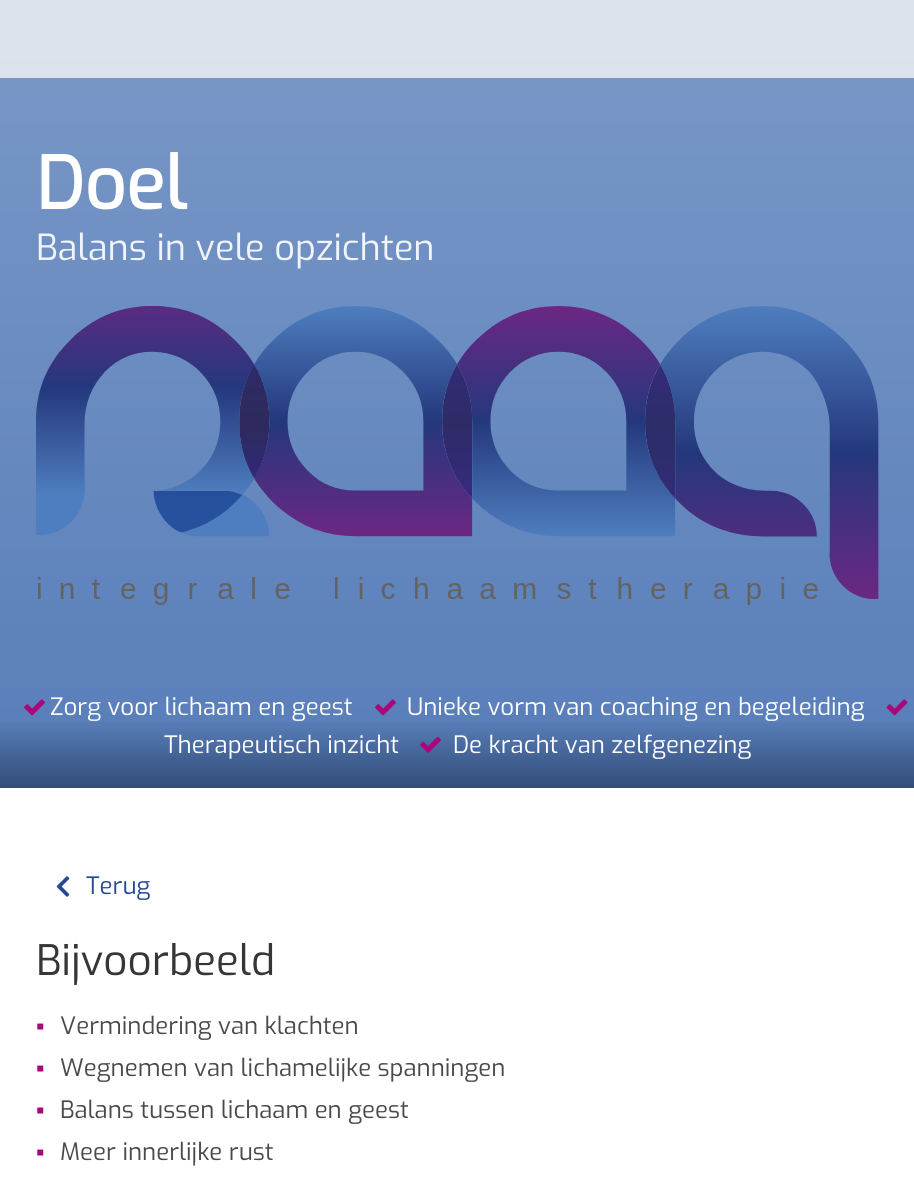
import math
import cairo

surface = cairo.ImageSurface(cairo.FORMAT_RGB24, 914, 1195)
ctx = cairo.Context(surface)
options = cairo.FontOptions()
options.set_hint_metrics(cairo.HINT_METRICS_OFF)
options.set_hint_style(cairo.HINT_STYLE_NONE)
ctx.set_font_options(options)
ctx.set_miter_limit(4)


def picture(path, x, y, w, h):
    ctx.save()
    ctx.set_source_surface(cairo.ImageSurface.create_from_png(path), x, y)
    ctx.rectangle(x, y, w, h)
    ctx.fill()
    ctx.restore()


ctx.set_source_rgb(1, 1, 1)
ctx.paint()
gradient = cairo.LinearGradient(458, 788, 458, 0)
gradient.add_color_stop_rgba(0, 0.341, 0.49, 0.725, 1)
gradient.add_color_stop_rgba(1, 0.482, 0.6, 0.784, 1)
ctx.set_source(gradient)
ctx.rectangle(0, 78, 914, 710)
ctx.fill()
gradient = cairo.LinearGradient(458, 788, 458, 0)
gradient.add_color_stop_rgba(0, 0.835, 0.867, 0.914, 1)
gradient.add_color_stop_rgba(1, 0.867, 0.89, 0.925, 1)
ctx.set_source(gradient)
ctx.rectangle(0, 0, 914, 78)
ctx.fill()
ctx.select_font_face("Exo", cairo.FONT_SLANT_NORMAL, cairo.FONT_WEIGHT_BOLD)
ctx.set_font_size(72)
ctx.set_source_rgb(1, 1, 1)
ctx.move_to(36, 209)
ctx.show_text("Doel")
ctx.select_font_face("Exo")
ctx.set_font_size(36)
ctx.set_source_rgb(0.945, 0.957, 0.976)
ctx.move_to(36, 260)
ctx.show_text("Balans in vele opzichten")
picture("img1.png", 36, 306, 843, 299)
gradient = cairo.LinearGradient(458, 788, 458, 689)
gradient.add_color_stop_rgba(0, 0.196, 0.302, 0.471, 1)
gradient.add_color_stop_rgba(0.7, 0.196, 0.302, 0.471, 0)
ctx.set_source(gradient)
ctx.rectangle(0, 722, 914, 66)
ctx.fill()
picture("img2.png", 24, 699, 21, 17)
ctx.set_font_size(24)
ctx.set_source_rgb(1, 1, 1)
ctx.move_to(50, 715)
ctx.show_text("Zorg voor lichaam en geest")
picture("img2.png", 375, 699, 21, 17)
ctx.move_to(407, 715)
ctx.show_text("Unieke vorm van coaching en begeleiding")
picture("img3.png", 886, 699, 22, 17)
ctx.move_to(164, 753)
ctx.show_text("Therapeutisch inzicht")
picture("img4.png", 420, 736, 21, 17)
ctx.move_to(453, 753)
ctx.show_text("De kracht van zelfgenezing")
picture("img5.png", 56, 876, 14, 21)
ctx.set_source_rgb(0.153, 0.282, 0.58)
ctx.move_to(86, 894)
ctx.show_text("Terug")
ctx.set_font_size(42)
ctx.set_source_rgb(0.212, 0.212, 0.212)
ctx.move_to(36, 975)
ctx.show_text("Bijvoorbeeld")
ctx.select_font_face("Liberation Sans")
ctx.set_font_size(24)
ctx.set_source_rgb(0.663, 0.024, 0.482)
ctx.move_to(36, 1034)
ctx.show_text("▪")
ctx.select_font_face("Exo")
ctx.set_source_rgb(0.29, 0.29, 0.29)
ctx.move_to(60, 1034)
ctx.show_text("Vermindering van klachten")
ctx.select_font_face("Liberation Sans")
ctx.set_source_rgb(0.663, 0.024, 0.482)
ctx.move_to(36, 1076)
ctx.show_text("▪")
ctx.select_font_face("Exo")
ctx.set_source_rgb(0.29, 0.29, 0.29)
ctx.move_to(60, 1076)
ctx.show_text("Wegnemen van lichamelijke spanningen")
ctx.select_font_face("Liberation Sans")
ctx.set_source_rgb(0.663, 0.024, 0.482)
ctx.move_to(36, 1118)
ctx.show_text("▪")
ctx.select_font_face("Exo")
ctx.set_source_rgb(0.29, 0.29, 0.29)
ctx.move_to(60, 1118)
ctx.show_text("Balans tussen lichaam en geest")
ctx.select_font_face("Liberation Sans")
ctx.set_source_rgb(0.663, 0.024, 0.482)
ctx.move_to(36, 1160)
ctx.show_text("▪")
ctx.select_font_face("Exo")
ctx.set_source_rgb(0.29, 0.29, 0.29)
ctx.move_to(60, 1160)
ctx.show_text("Meer innerlijke rust")
surface.write_to_png("page.png")
